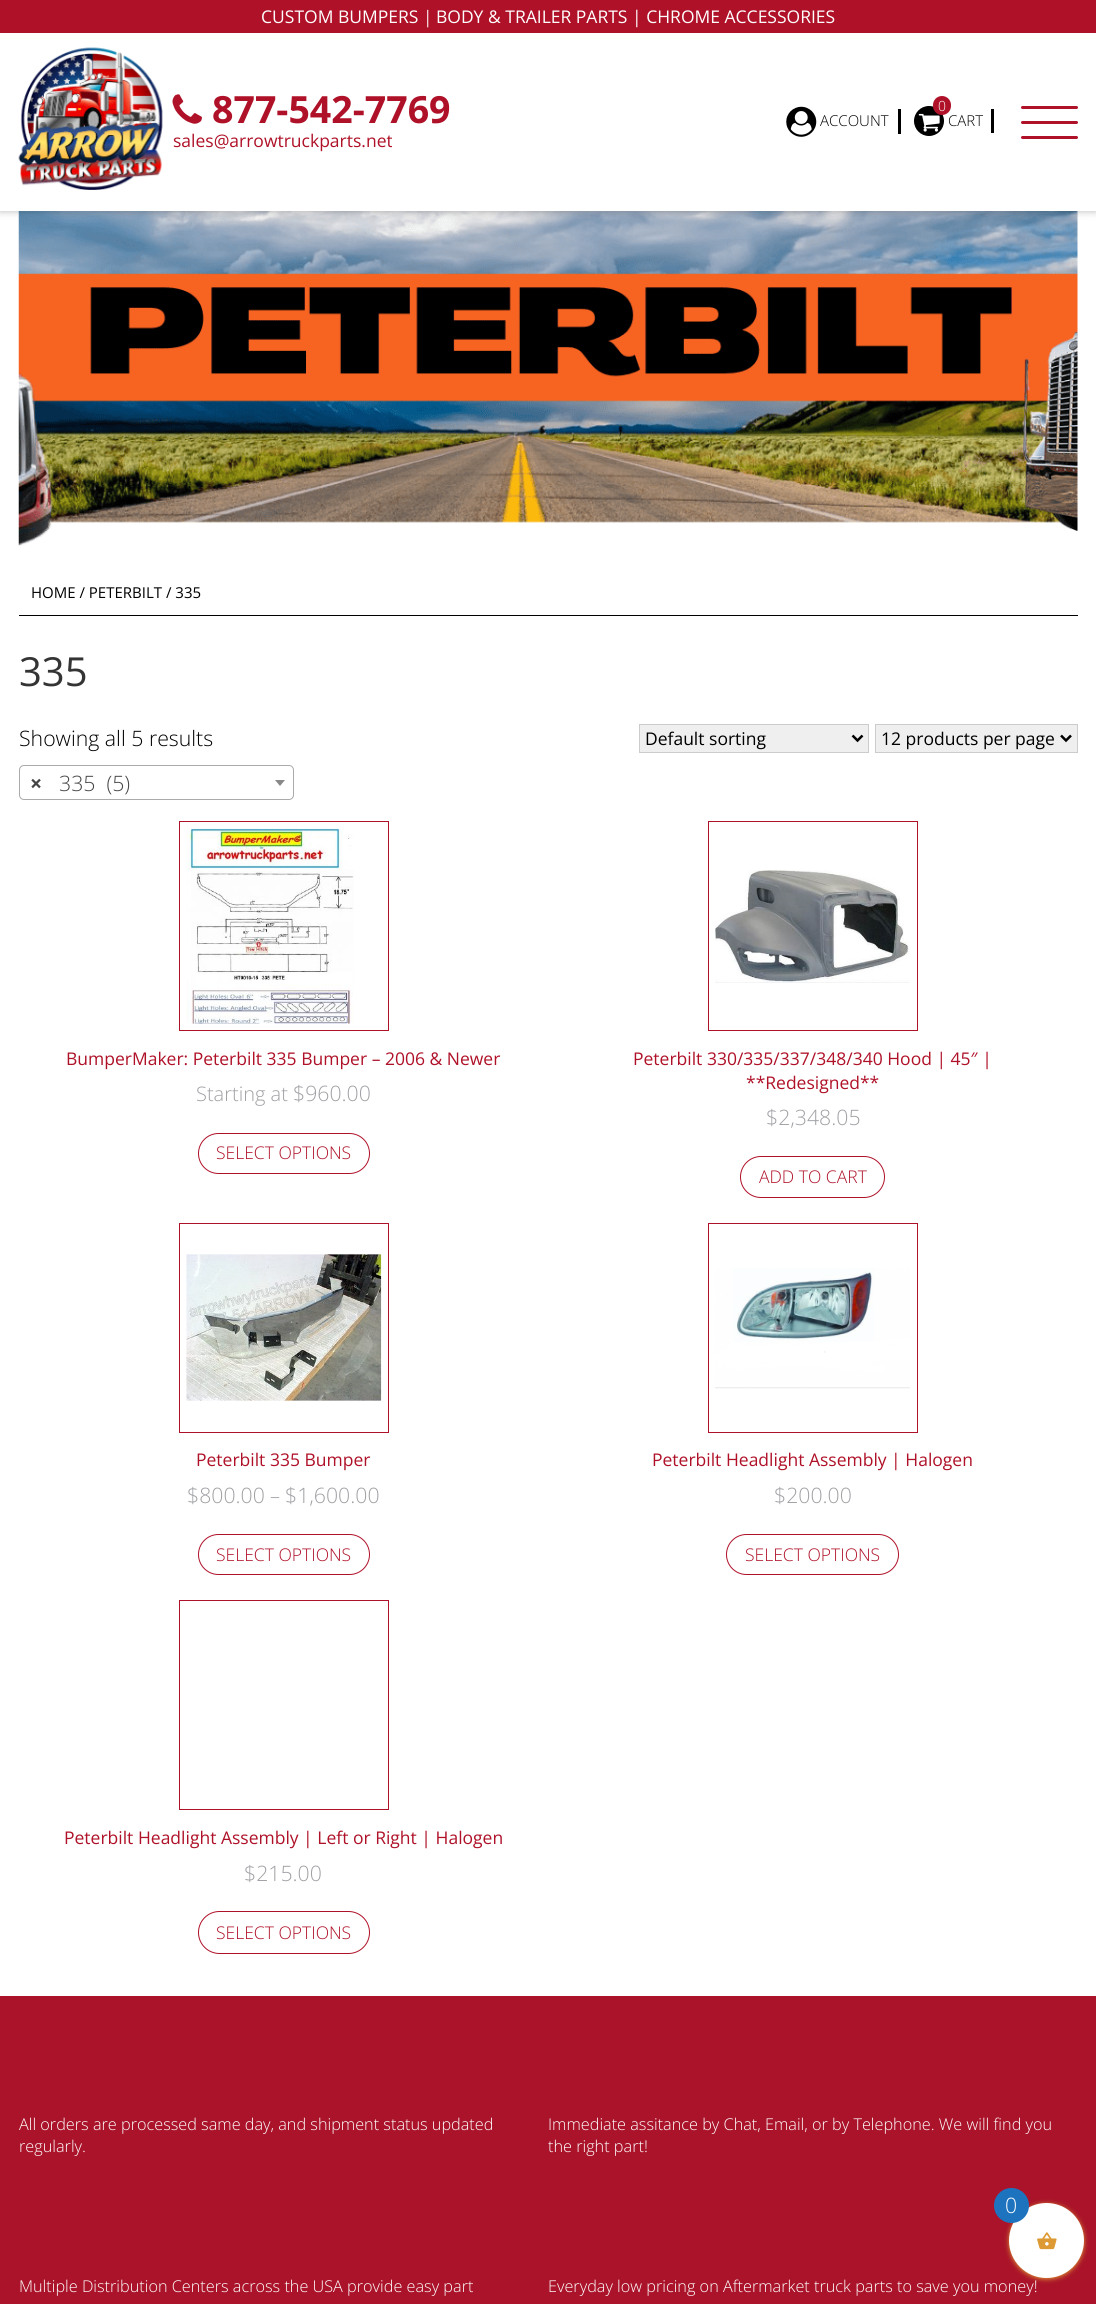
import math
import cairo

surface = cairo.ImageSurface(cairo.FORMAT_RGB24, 1096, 2304)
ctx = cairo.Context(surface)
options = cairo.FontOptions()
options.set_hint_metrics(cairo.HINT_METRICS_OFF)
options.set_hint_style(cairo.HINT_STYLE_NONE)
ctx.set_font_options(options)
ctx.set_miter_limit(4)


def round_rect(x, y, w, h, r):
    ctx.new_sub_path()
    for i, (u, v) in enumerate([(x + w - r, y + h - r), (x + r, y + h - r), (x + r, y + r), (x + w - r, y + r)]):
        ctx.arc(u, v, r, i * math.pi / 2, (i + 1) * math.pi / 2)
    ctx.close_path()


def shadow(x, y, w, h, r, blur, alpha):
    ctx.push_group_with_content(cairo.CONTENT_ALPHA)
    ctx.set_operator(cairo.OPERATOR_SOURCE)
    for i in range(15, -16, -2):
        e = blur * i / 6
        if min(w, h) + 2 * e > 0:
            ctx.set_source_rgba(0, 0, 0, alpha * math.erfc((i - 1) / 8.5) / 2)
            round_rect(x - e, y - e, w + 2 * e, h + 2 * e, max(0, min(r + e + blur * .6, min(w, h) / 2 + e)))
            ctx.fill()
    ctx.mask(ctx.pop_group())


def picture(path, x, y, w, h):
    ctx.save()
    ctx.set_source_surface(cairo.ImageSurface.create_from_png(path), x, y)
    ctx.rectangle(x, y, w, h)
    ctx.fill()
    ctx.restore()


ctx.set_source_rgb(1, 1, 1)
ctx.paint()
picture("img5.png", 18, 211, 1060, 335)
ctx.set_source_rgb(0, 0, 0)
shadow(0, 0, 1096, 211, 0, 4, 0.28)
ctx.set_source_rgb(1, 1, 1)
ctx.rectangle(0, 33, 1096, 178)
ctx.fill()
ctx.set_source_rgb(0.686, 0.067, 0.157)
ctx.rectangle(0, 0, 1096, 33)
ctx.fill()
ctx.select_font_face("Open Sans")
ctx.set_font_size(17.5)
ctx.set_source_rgb(1, 1, 1)
ctx.move_to(261, 23)
ctx.show_text("CUSTOM BUMPERS")
ctx.select_font_face("WenQuanYi Zen Hei Medium")
ctx.move_to(419, 23)
ctx.show_text("｜")
ctx.select_font_face("Open Sans")
ctx.move_to(436, 23)
ctx.show_text("BODY & TRAILER PARTS | CHROME ACCESSORIES")
picture("img1.png", 18, 47, 145, 143)
picture("img2.png", 172, 94, 30, 30)
ctx.select_font_face("Open Sans", cairo.FONT_SLANT_NORMAL, cairo.FONT_WEIGHT_BOLD)
ctx.set_font_size(37.5)
ctx.set_source_rgb(0.686, 0.067, 0.157)
ctx.move_to(212, 123)
ctx.show_text("877-542-7769")
ctx.select_font_face("Open Sans")
ctx.set_font_size(17.5)
ctx.move_to(173, 147)
ctx.show_text("sales@arrowtruckparts.net")
picture("img3.png", 786, 106, 31, 31)
ctx.select_font_face("Open Sans Light")
ctx.set_font_size(15)
ctx.set_source_rgb(0, 0, 0)
ctx.move_to(820, 126)
ctx.show_text("ACCOUNT")
ctx.rectangle(898, 109, 3, 25)
ctx.fill()
ctx.arc(929, 121, 15, 0, 2 * math.pi)
ctx.fill()
picture("img4.png", 918, 113, 22, 19)
ctx.set_source_rgb(0.686, 0.067, 0.157)
round_rect(933, 96, 18, 19, 9)
ctx.fill()
ctx.set_font_size(14)
ctx.set_source_rgb(1, 1, 1)
ctx.move_to(938, 111)
ctx.show_text("0")
ctx.set_font_size(15)
ctx.set_source_rgb(0, 0, 0)
ctx.move_to(948, 126)
ctx.show_text("CART")
ctx.rectangle(991, 109, 3, 24)
ctx.fill()
ctx.set_source_rgb(0.686, 0.067, 0.157)
round_rect(1021, 106, 57, 3, 1.5)
ctx.fill()
round_rect(1021, 121, 57, 3, 1.5)
ctx.fill()
round_rect(1021, 136, 57, 3, 1.5)
ctx.fill()
ctx.set_source_rgb(0, 0, 0)
ctx.rectangle(19, 615, 1059, 1)
ctx.fill()
ctx.select_font_face("Open Sans")
ctx.move_to(31, 598)
ctx.show_text("HOME / PETERBILT / 335")
ctx.set_font_size(40)
ctx.set_source_rgb(0.204, 0.204, 0.204)
ctx.move_to(19, 686)
ctx.show_text("335")
ctx.select_font_face("Open Sans Light")
ctx.set_font_size(21.25)
ctx.set_source_rgb(0, 0, 0)
ctx.move_to(19, 746)
ctx.show_text("Showing all 5 results")
ctx.set_source_rgb(0.937, 0.937, 0.937)
ctx.rectangle(639.5, 724.5, 229, 28)
ctx.fill_preserve()
ctx.set_source_rgb(0.8, 0.8, 0.8)
ctx.set_line_width(1)
ctx.stroke()
ctx.new_path()
ctx.move_to(852.5, 735.5)
ctx.line_to(857.5, 740.5)
ctx.line_to(862.5, 735.5)
ctx.set_source_rgb(0, 0, 0)
ctx.set_line_width(2.5)
ctx.stroke()
ctx.select_font_face("Open Sans")
ctx.set_font_size(17.5)
ctx.move_to(645, 745)
ctx.show_text("Default sorting")
ctx.set_source_rgb(0.937, 0.937, 0.937)
ctx.rectangle(875.5, 724.5, 202, 28)
ctx.fill_preserve()
ctx.set_source_rgb(0.8, 0.8, 0.8)
ctx.set_line_width(1)
ctx.stroke()
ctx.new_path()
ctx.move_to(1061, 735.5)
ctx.line_to(1066, 740.5)
ctx.line_to(1071, 735.5)
ctx.set_source_rgb(0, 0, 0)
ctx.set_line_width(2.5)
ctx.stroke()
ctx.move_to(881, 745)
ctx.show_text("12 products per page")
round_rect(19.5, 765.5, 274, 34, 4.5)
ctx.set_source_rgb(0.667, 0.667, 0.667)
ctx.set_line_width(1)
ctx.stroke()
ctx.select_font_face("Open Sans", cairo.FONT_SLANT_NORMAL, cairo.FONT_WEIGHT_BOLD)
ctx.set_font_size(21.25)
ctx.set_source_rgb(0.267, 0.267, 0.267)
ctx.move_to(30, 791)
ctx.show_text("×")
ctx.select_font_face("Open Sans Light")
ctx.move_to(59, 791)
ctx.show_text("335  (5)")
ctx.set_source_rgb(0.533, 0.533, 0.533)
ctx.new_path()
ctx.move_to(275, 780)
ctx.line_to(285, 780)
ctx.line_to(280, 786)
ctx.close_path()
ctx.fill()
ctx.rectangle(179.5, 821.5, 209, 209)
ctx.set_source_rgb(0.686, 0.067, 0.157)
ctx.stroke()
picture("img6.png", 186, 828, 168, 196)
ctx.select_font_face("Open Sans")
ctx.set_font_size(17.5)
ctx.move_to(66, 1065)
ctx.show_text("BumperMaker: Peterbilt 335 Bumper – 2006 & Newer")
ctx.select_font_face("Open Sans Light")
ctx.set_font_size(20)
ctx.set_source_rgb(0.627, 0.631, 0.647)
ctx.move_to(196, 1101)
ctx.show_text("Starting at")
ctx.set_font_size(21.25)
ctx.move_to(293, 1101)
ctx.show_text("$960.00")
round_rect(198.5, 1133.5, 171, 40, 20)
ctx.set_source_rgb(0.686, 0.067, 0.157)
ctx.stroke()
ctx.set_font_size(17.5)
ctx.move_to(216, 1159)
ctx.show_text("SELECT OPTIONS")
ctx.rectangle(708.5, 821.5, 209, 209)
ctx.stroke()
picture("img7.png", 715, 870, 195, 113)
ctx.select_font_face("Open Sans")
ctx.move_to(633, 1065)
ctx.show_text("Peterbilt 330/335/337/348/340 Hood | 45″ |")
ctx.move_to(746, 1089)
ctx.show_text("**Redesigned**")
ctx.select_font_face("Open Sans Light")
ctx.set_font_size(21.25)
ctx.set_source_rgb(0.627, 0.631, 0.647)
ctx.move_to(766, 1125)
ctx.show_text("$2,348.05")
round_rect(740.5, 1156.5, 144, 41, 20.5)
ctx.set_source_rgb(0.686, 0.067, 0.157)
ctx.stroke()
ctx.set_font_size(17.5)
ctx.move_to(759, 1183)
ctx.show_text("ADD TO CART")
ctx.rectangle(179.5, 1223.5, 209, 209)
ctx.stroke()
picture("img8.png", 186, 1254, 196, 147)
ctx.select_font_face("Open Sans")
ctx.move_to(196, 1466)
ctx.show_text("Peterbilt 335 Bumper")
ctx.select_font_face("Open Sans Light")
ctx.set_font_size(21.25)
ctx.set_source_rgb(0.627, 0.631, 0.647)
ctx.move_to(187, 1503)
ctx.show_text("$800.00")
ctx.set_font_size(20)
ctx.move_to(270, 1503)
ctx.show_text("–")
ctx.set_font_size(21.25)
ctx.move_to(285, 1503)
ctx.show_text("$1,600.00")
round_rect(198.5, 1534.5, 171, 40, 20)
ctx.set_source_rgb(0.686, 0.067, 0.157)
ctx.stroke()
ctx.set_font_size(17.5)
ctx.move_to(216, 1561)
ctx.show_text("SELECT OPTIONS")
ctx.rectangle(708.5, 1223.5, 209, 209)
ctx.stroke()
picture("img9.png", 715, 1268, 195, 121)
ctx.select_font_face("Open Sans")
ctx.move_to(652, 1466)
ctx.show_text("Peterbilt Headlight Assembly | Halogen")
ctx.select_font_face("Open Sans Light")
ctx.set_font_size(21.25)
ctx.set_source_rgb(0.627, 0.631, 0.647)
ctx.move_to(774, 1503)
ctx.show_text("$200.00")
round_rect(726.5, 1534.5, 172, 40, 20)
ctx.set_source_rgb(0.686, 0.067, 0.157)
ctx.stroke()
ctx.set_font_size(17.5)
ctx.move_to(745, 1561)
ctx.show_text("SELECT OPTIONS")
ctx.rectangle(179.5, 1600.5, 209, 209)
ctx.stroke()
ctx.select_font_face("Open Sans")
ctx.move_to(64, 1844)
ctx.show_text("Peterbilt Headlight Assembly | Left or Right | Halogen")
ctx.select_font_face("Open Sans Light")
ctx.set_font_size(21.25)
ctx.set_source_rgb(0.627, 0.631, 0.647)
ctx.move_to(244, 1881)
ctx.show_text("$215.00")
round_rect(198.5, 1911.5, 171, 42, 21)
ctx.set_source_rgb(0.686, 0.067, 0.157)
ctx.stroke()
ctx.set_font_size(17.5)
ctx.move_to(216, 1939)
ctx.show_text("SELECT OPTIONS")
ctx.set_source_rgb(0.667, 0.075, 0.161)
ctx.rectangle(0, 1996, 1096, 308)
ctx.fill()
ctx.set_font_size(16.25)
ctx.set_source_rgb(1, 1, 1)
ctx.move_to(19, 2130)
ctx.show_text("All orders are processed same day, and shipment status updated")
ctx.move_to(19, 2152)
ctx.show_text("regularly.")
ctx.move_to(548, 2130)
ctx.show_text("Immediate assitance by Chat, Email, or by Telephone. We will find you")
ctx.move_to(548, 2152)
ctx.show_text("the right part!")
ctx.move_to(19, 2292)
ctx.show_text("Multiple Distribution Centers across the USA provide easy part")
ctx.move_to(548, 2292)
ctx.show_text("Everyday low pricing on Aftermarket truck parts to save you money!")
ctx.set_source_rgb(0.867, 0.6, 0.2)
shadow(1009, 2204, 75, 75, 37.5, 2.5, 1)
ctx.set_source_rgb(1, 1, 1)
ctx.arc(1046.5, 2240.5, 37.5, 0, 2 * math.pi)
ctx.fill()
ctx.set_source_rgb(0.118, 0.451, 0.745)
ctx.arc(1011.5, 2205.5, 17.5, 0, 2 * math.pi)
ctx.fill()
ctx.set_font_size(21.25)
ctx.set_source_rgb(1, 1, 1)
ctx.move_to(1005, 2213)
ctx.show_text("0")
picture("img10.png", 1037, 2232, 20, 18)
surface.write_to_png("page.png")
